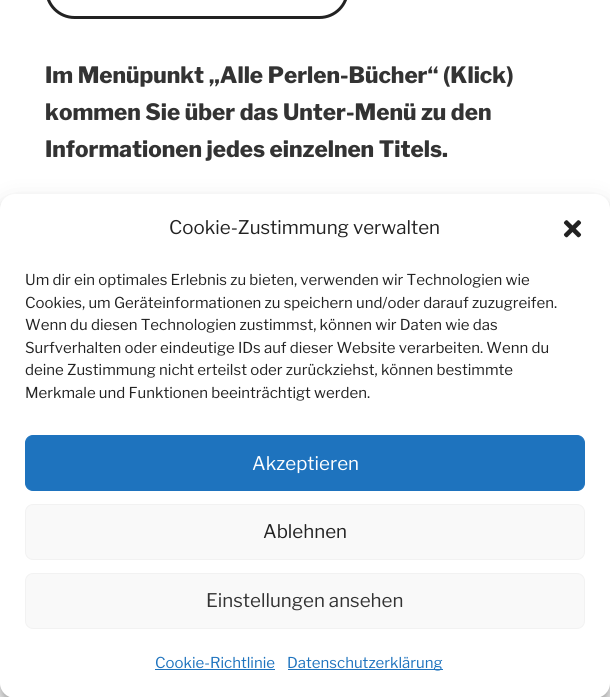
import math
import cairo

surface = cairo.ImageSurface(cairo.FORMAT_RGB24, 610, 697)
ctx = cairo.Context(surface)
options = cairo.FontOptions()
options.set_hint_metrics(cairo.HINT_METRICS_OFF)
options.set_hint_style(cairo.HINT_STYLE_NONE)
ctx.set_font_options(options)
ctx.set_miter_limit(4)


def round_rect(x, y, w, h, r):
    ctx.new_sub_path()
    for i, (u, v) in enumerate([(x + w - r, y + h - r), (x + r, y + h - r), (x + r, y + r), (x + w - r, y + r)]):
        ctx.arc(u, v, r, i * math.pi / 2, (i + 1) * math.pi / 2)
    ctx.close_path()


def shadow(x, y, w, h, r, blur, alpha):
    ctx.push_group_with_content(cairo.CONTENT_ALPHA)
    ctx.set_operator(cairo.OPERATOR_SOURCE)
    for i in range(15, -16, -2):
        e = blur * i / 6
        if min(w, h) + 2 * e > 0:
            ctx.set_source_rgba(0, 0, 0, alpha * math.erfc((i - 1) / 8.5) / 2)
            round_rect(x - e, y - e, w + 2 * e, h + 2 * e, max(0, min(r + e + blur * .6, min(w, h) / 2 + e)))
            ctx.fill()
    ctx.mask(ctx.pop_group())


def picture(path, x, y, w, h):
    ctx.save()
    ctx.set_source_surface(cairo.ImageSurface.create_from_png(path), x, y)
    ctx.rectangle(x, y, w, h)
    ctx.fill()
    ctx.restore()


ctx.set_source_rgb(1, 1, 1)
ctx.paint()
round_rect(46.5, -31.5, 301, 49, 28)
ctx.set_source_rgb(0.133, 0.133, 0.133)
ctx.set_line_width(3)
ctx.stroke()
ctx.select_font_face("Libre Franklin Thin")
ctx.set_font_size(22.5)
ctx.set_source_rgb(0.2, 0.2, 0.2)
ctx.move_to(45, 83)
ctx.show_text("Im Menüpunkt „Alle Perlen-Bücher“ (Klick)")
ctx.move_to(45, 120)
ctx.show_text("kommen Sie über das Unter-Menü zu den")
ctx.move_to(45, 157)
ctx.show_text("Informationen jedes einzelnen Titels.")
ctx.set_source_rgb(0, 0, 0)
shadow(0, 201, 610, 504, 15, 4, 0.23)
shadow(0, 206, 610, 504, 15, 12.5, 0.19)
ctx.set_source_rgb(1, 1, 1)
round_rect(0, 194, 610, 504, 15)
ctx.fill()
ctx.select_font_face("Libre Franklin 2 Thin")
ctx.set_font_size(18.75)
ctx.set_source_rgb(0.133, 0.133, 0.133)
ctx.move_to(169, 234)
ctx.show_text("Cookie-Zustimmung verwalten")
picture("img1.png", 563, 220, 19, 18)
ctx.set_font_size(15)
ctx.move_to(25, 285)
ctx.show_text("Um dir ein optimales Erlebnis zu bieten, verwenden wir Technologien wie")
ctx.move_to(25, 308)
ctx.show_text("Cookies, um Geräteinformationen zu speichern und/oder darauf zuzugreifen.")
ctx.move_to(25, 330)
ctx.show_text("Wenn du diesen Technologien zustimmst, können wir Daten wie das")
ctx.move_to(25, 353)
ctx.show_text("Surfverhalten oder eindeutige IDs auf dieser Website verarbeiten. Wenn du")
ctx.move_to(25, 375)
ctx.show_text("deine Zustimmung nicht erteilst oder zurückziehst, können bestimmte")
ctx.move_to(25, 398)
ctx.show_text("Merkmale und Funktionen beeinträchtigt werden.")
ctx.set_source_rgb(0.118, 0.451, 0.745)
round_rect(25.5, 435.5, 559, 55, 7.5)
ctx.fill_preserve()
ctx.set_line_width(1)
ctx.stroke()
ctx.set_font_size(18.75)
ctx.set_source_rgb(1, 1, 1)
ctx.move_to(252, 470)
ctx.show_text("Akzeptieren")
ctx.set_source_rgb(0.976, 0.976, 0.976)
round_rect(25.5, 504.5, 559, 55, 7.5)
ctx.fill_preserve()
ctx.set_source_rgb(0.949, 0.949, 0.949)
ctx.stroke()
ctx.set_source_rgb(0.133, 0.133, 0.133)
ctx.move_to(263, 538)
ctx.show_text("Ablehnen")
ctx.set_source_rgb(0.976, 0.976, 0.976)
round_rect(25.5, 573.5, 559, 55, 7.5)
ctx.fill_preserve()
ctx.set_source_rgb(0.949, 0.949, 0.949)
ctx.stroke()
ctx.set_source_rgb(0.2, 0.2, 0.2)
ctx.move_to(206, 607)
ctx.show_text("Einstellungen ansehen")
ctx.set_font_size(15)
ctx.set_source_rgb(0.118, 0.451, 0.745)
ctx.move_to(155, 668)
ctx.show_text("Cookie-Richtlinie")
ctx.rectangle(155, 669, 120, 1)
ctx.fill()
ctx.rectangle(288, 669, 155, 1)
ctx.fill()
ctx.move_to(287, 668)
ctx.show_text("Datenschutzerklärung")
surface.write_to_png("page.png")
